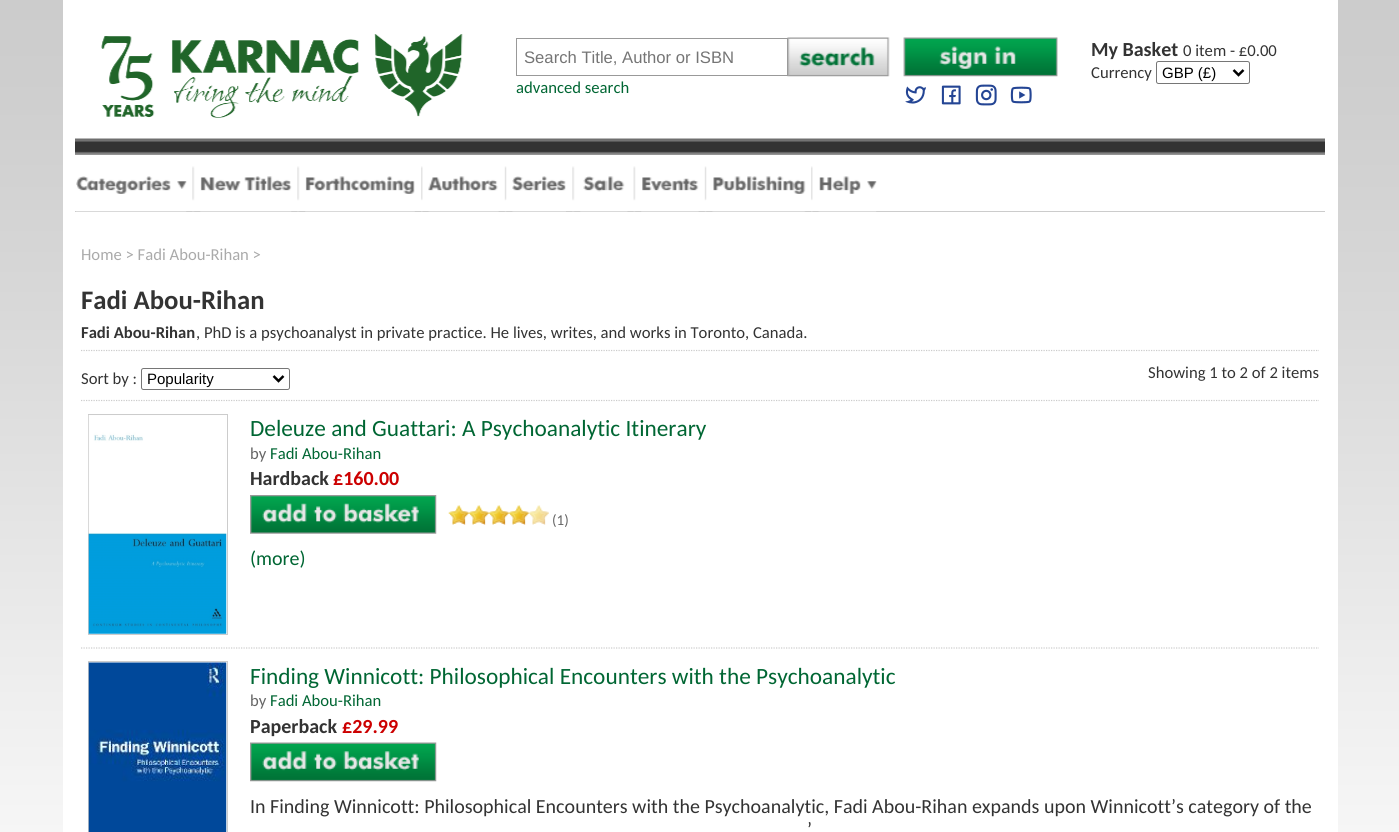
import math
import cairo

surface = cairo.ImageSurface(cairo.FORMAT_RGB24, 1399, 832)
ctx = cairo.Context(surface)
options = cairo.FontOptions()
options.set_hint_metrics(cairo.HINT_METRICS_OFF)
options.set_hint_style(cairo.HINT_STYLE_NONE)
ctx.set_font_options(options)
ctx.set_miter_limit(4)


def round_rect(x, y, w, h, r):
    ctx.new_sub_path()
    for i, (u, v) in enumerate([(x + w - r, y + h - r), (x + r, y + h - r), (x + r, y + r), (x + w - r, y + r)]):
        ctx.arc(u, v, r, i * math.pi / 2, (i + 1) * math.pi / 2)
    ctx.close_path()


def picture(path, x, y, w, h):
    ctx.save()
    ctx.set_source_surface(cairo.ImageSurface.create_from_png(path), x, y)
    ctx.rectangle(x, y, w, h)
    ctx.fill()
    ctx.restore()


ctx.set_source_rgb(1, 1, 1)
ctx.paint()
picture("img1.png", 0, 0, 1399, 832)
ctx.set_source_rgb(1, 1, 1)
ctx.rectangle(63, 0, 1275, 832)
ctx.fill()
picture("img2.png", 101, 34, 362, 84)
ctx.rectangle(516.5, 38.5, 271, 37)
ctx.set_source_rgb(0.6, 0.6, 0.6)
ctx.set_line_width(1)
ctx.stroke()
ctx.select_font_face("Liberation Sans")
ctx.set_font_size(16.65)
ctx.set_source_rgb(0.459, 0.459, 0.459)
ctx.move_to(524, 63)
ctx.show_text("Search Title, Author or ISBN")
picture("img3.png", 787, 37, 103, 40)
ctx.select_font_face("Carlito")
ctx.set_source_rgb(0, 0.4, 0.2)
ctx.move_to(516, 93)
ctx.show_text("advanced search")
picture("img4.png", 903, 37, 155, 40)
picture("img5.png", 905, 86, 21, 18)
picture("img6.png", 941, 85, 20, 20)
picture("img7.png", 975, 84, 22, 22)
picture("img8.png", 1010, 86, 22, 18)
ctx.select_font_face("Carlito", cairo.FONT_SLANT_NORMAL, cairo.FONT_WEIGHT_BOLD)
ctx.set_font_size(20)
ctx.set_source_rgb(0.2, 0.2, 0.2)
ctx.move_to(1091, 56)
ctx.show_text("My Basket")
ctx.select_font_face("Carlito")
ctx.set_font_size(16.65)
ctx.move_to(1183, 56)
ctx.show_text("0 item - £0.00")
ctx.move_to(1091, 78)
ctx.show_text("Currency")
round_rect(1156.5, 61.5, 93, 22, 2)
ctx.set_source_rgb(0.463, 0.463, 0.463)
ctx.stroke()
ctx.new_path()
ctx.move_to(1233.5, 70)
ctx.line_to(1238.5, 75)
ctx.line_to(1243.5, 70)
ctx.set_source_rgb(0, 0, 0)
ctx.set_line_width(2.5)
ctx.stroke()
ctx.select_font_face("Liberation Sans")
ctx.set_font_size(15)
ctx.move_to(1162, 78)
ctx.show_text("GBP (£)")
picture("img9.png", 75, 138, 1250, 17)
ctx.set_source_rgb(0.8, 0.8, 0.8)
ctx.rectangle(75, 211, 1250, 1)
ctx.fill()
picture("img10.png", 76, 176, 111, 36)
picture("img11.png", 192, 166, 3, 46)
picture("img12.png", 200, 176, 92, 36)
picture("img11.png", 297, 166, 3, 46)
picture("img13.png", 305, 176, 110, 36)
picture("img14.png", 421, 166, 2, 46)
picture("img15.png", 428, 176, 71, 36)
picture("img16.png", 504, 166, 3, 46)
picture("img17.png", 512, 176, 54, 36)
picture("img11.png", 572, 166, 3, 46)
picture("img18.png", 580, 176, 48, 36)
picture("img19.png", 633, 166, 3, 46)
picture("img20.png", 641, 177, 58, 35)
picture("img16.png", 704, 166, 3, 46)
picture("img21.png", 712, 176, 94, 36)
picture("img14.png", 811, 166, 2, 46)
picture("img22.png", 818, 176, 59, 36)
ctx.select_font_face("Carlito")
ctx.set_font_size(16.65)
ctx.set_source_rgb(0.667, 0.667, 0.667)
ctx.move_to(81, 260)
ctx.show_text("Home > Fadi Abou-Rihan >")
ctx.select_font_face("Carlito", cairo.FONT_SLANT_NORMAL, cairo.FONT_WEIGHT_BOLD)
ctx.set_font_size(26.75)
ctx.set_source_rgb(0.2, 0.2, 0.2)
ctx.move_to(81, 309)
ctx.show_text("Fadi Abou-Rihan")
ctx.set_font_size(16.65)
ctx.move_to(81, 338)
ctx.show_text("Fadi Abou-Rihan")
ctx.select_font_face("Carlito")
ctx.move_to(196, 338)
ctx.show_text(", PhD is a psychoanalyst in private practice. He lives, writes, and works in Toronto, Canada.")
ctx.new_path()
ctx.move_to(81, 350.5)
ctx.line_to(1319, 350.5)
ctx.set_source_rgb(0.8, 0.8, 0.8)
ctx.set_line_width(1.2)
ctx.set_dash([1.25, 1.25])
ctx.stroke()
ctx.new_path()
ctx.move_to(81, 400.5)
ctx.line_to(1319, 400.5)
ctx.stroke()
ctx.set_source_rgb(0.2, 0.2, 0.2)
ctx.move_to(81, 384)
ctx.show_text("Sort by :")
round_rect(141.5, 368.5, 148, 21, 2)
ctx.set_source_rgb(0.463, 0.463, 0.463)
ctx.set_line_width(1)
ctx.set_dash([])
ctx.stroke()
ctx.new_path()
ctx.move_to(273.5, 376)
ctx.line_to(278.5, 381)
ctx.line_to(283.5, 376)
ctx.set_source_rgb(0, 0, 0)
ctx.set_line_width(2.5)
ctx.stroke()
ctx.select_font_face("Liberation Sans")
ctx.set_font_size(15)
ctx.move_to(147, 384)
ctx.show_text("Popularity")
ctx.select_font_face("Carlito")
ctx.set_font_size(16.65)
ctx.set_source_rgb(0.2, 0.2, 0.2)
ctx.move_to(1148, 378)
ctx.show_text("Showing 1 to 2 of 2 items")
ctx.new_path()
ctx.move_to(81, 648)
ctx.line_to(1319, 648)
ctx.set_source_rgb(0.8, 0.8, 0.8)
ctx.set_line_width(1.2)
ctx.set_dash([1.25, 1.25])
ctx.stroke()
ctx.rectangle(88.5, 414.5, 139, 220)
ctx.set_line_width(1)
ctx.set_dash([])
ctx.stroke()
picture("img23.png", 88, 415, 139, 219)
ctx.set_font_size(23.3)
ctx.set_source_rgb(0, 0.4, 0.2)
ctx.move_to(250, 436)
ctx.show_text("Deleuze and Guattari: A Psychoanalytic Itinerary")
ctx.set_font_size(16.65)
ctx.set_source_rgb(0.4, 0.4, 0.4)
ctx.move_to(250, 459)
ctx.show_text("by")
ctx.set_source_rgb(0, 0.4, 0.2)
ctx.move_to(270, 459)
ctx.show_text("Fadi Abou-Rihan")
ctx.select_font_face("Carlito", cairo.FONT_SLANT_NORMAL, cairo.FONT_WEIGHT_BOLD)
ctx.set_font_size(20)
ctx.set_source_rgb(0.2, 0.2, 0.2)
ctx.move_to(250, 485)
ctx.show_text("Hardback")
ctx.set_source_rgb(0.8, 0, 0)
ctx.move_to(333, 485)
ctx.show_text("£160.00")
picture("img24.png", 250, 495, 187, 39)
picture("img25.png", 448, 505, 21, 20)
picture("img26.png", 468, 505, 21, 20)
picture("img26.png", 488, 505, 21, 20)
picture("img26.png", 508, 505, 21, 20)
picture("img27.png", 528, 505, 21, 20)
ctx.select_font_face("Carlito")
ctx.set_font_size(15)
ctx.set_source_rgb(0.4, 0.4, 0.4)
ctx.move_to(552, 525)
ctx.show_text("(1)")
ctx.set_font_size(20)
ctx.set_source_rgb(0, 0.4, 0.2)
ctx.move_to(250, 565)
ctx.show_text("(more)")
ctx.rectangle(88.5, 661.5, 139, 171)
ctx.set_source_rgb(0.8, 0.8, 0.8)
ctx.stroke()
picture("img28.png", 88, 662, 139, 170)
ctx.set_font_size(23.3)
ctx.set_source_rgb(0, 0.4, 0.2)
ctx.move_to(250, 684)
ctx.show_text("Finding Winnicott: Philosophical Encounters with the Psychoanalytic")
ctx.set_font_size(16.65)
ctx.set_source_rgb(0.4, 0.4, 0.4)
ctx.move_to(250, 706)
ctx.show_text("by")
ctx.set_source_rgb(0, 0.4, 0.2)
ctx.move_to(270, 706)
ctx.show_text("Fadi Abou-Rihan")
ctx.select_font_face("Carlito", cairo.FONT_SLANT_NORMAL, cairo.FONT_WEIGHT_BOLD)
ctx.set_font_size(20)
ctx.set_source_rgb(0.2, 0.2, 0.2)
ctx.move_to(250, 733)
ctx.show_text("Paperback")
ctx.set_source_rgb(0.8, 0, 0)
ctx.move_to(342, 733)
ctx.show_text("£29.99")
picture("img29.png", 250, 742, 187, 40)
ctx.select_font_face("Carlito")
ctx.set_source_rgb(0.2, 0.2, 0.2)
ctx.move_to(250, 813)
ctx.show_text("In Finding Winnicott: Philosophical Encounters with the Psychoanalytic, Fadi Abou-Rihan expands upon Winnicott’s category of the")
ctx.move_to(807, 836)
ctx.show_text("’")
surface.write_to_png("page.png")
